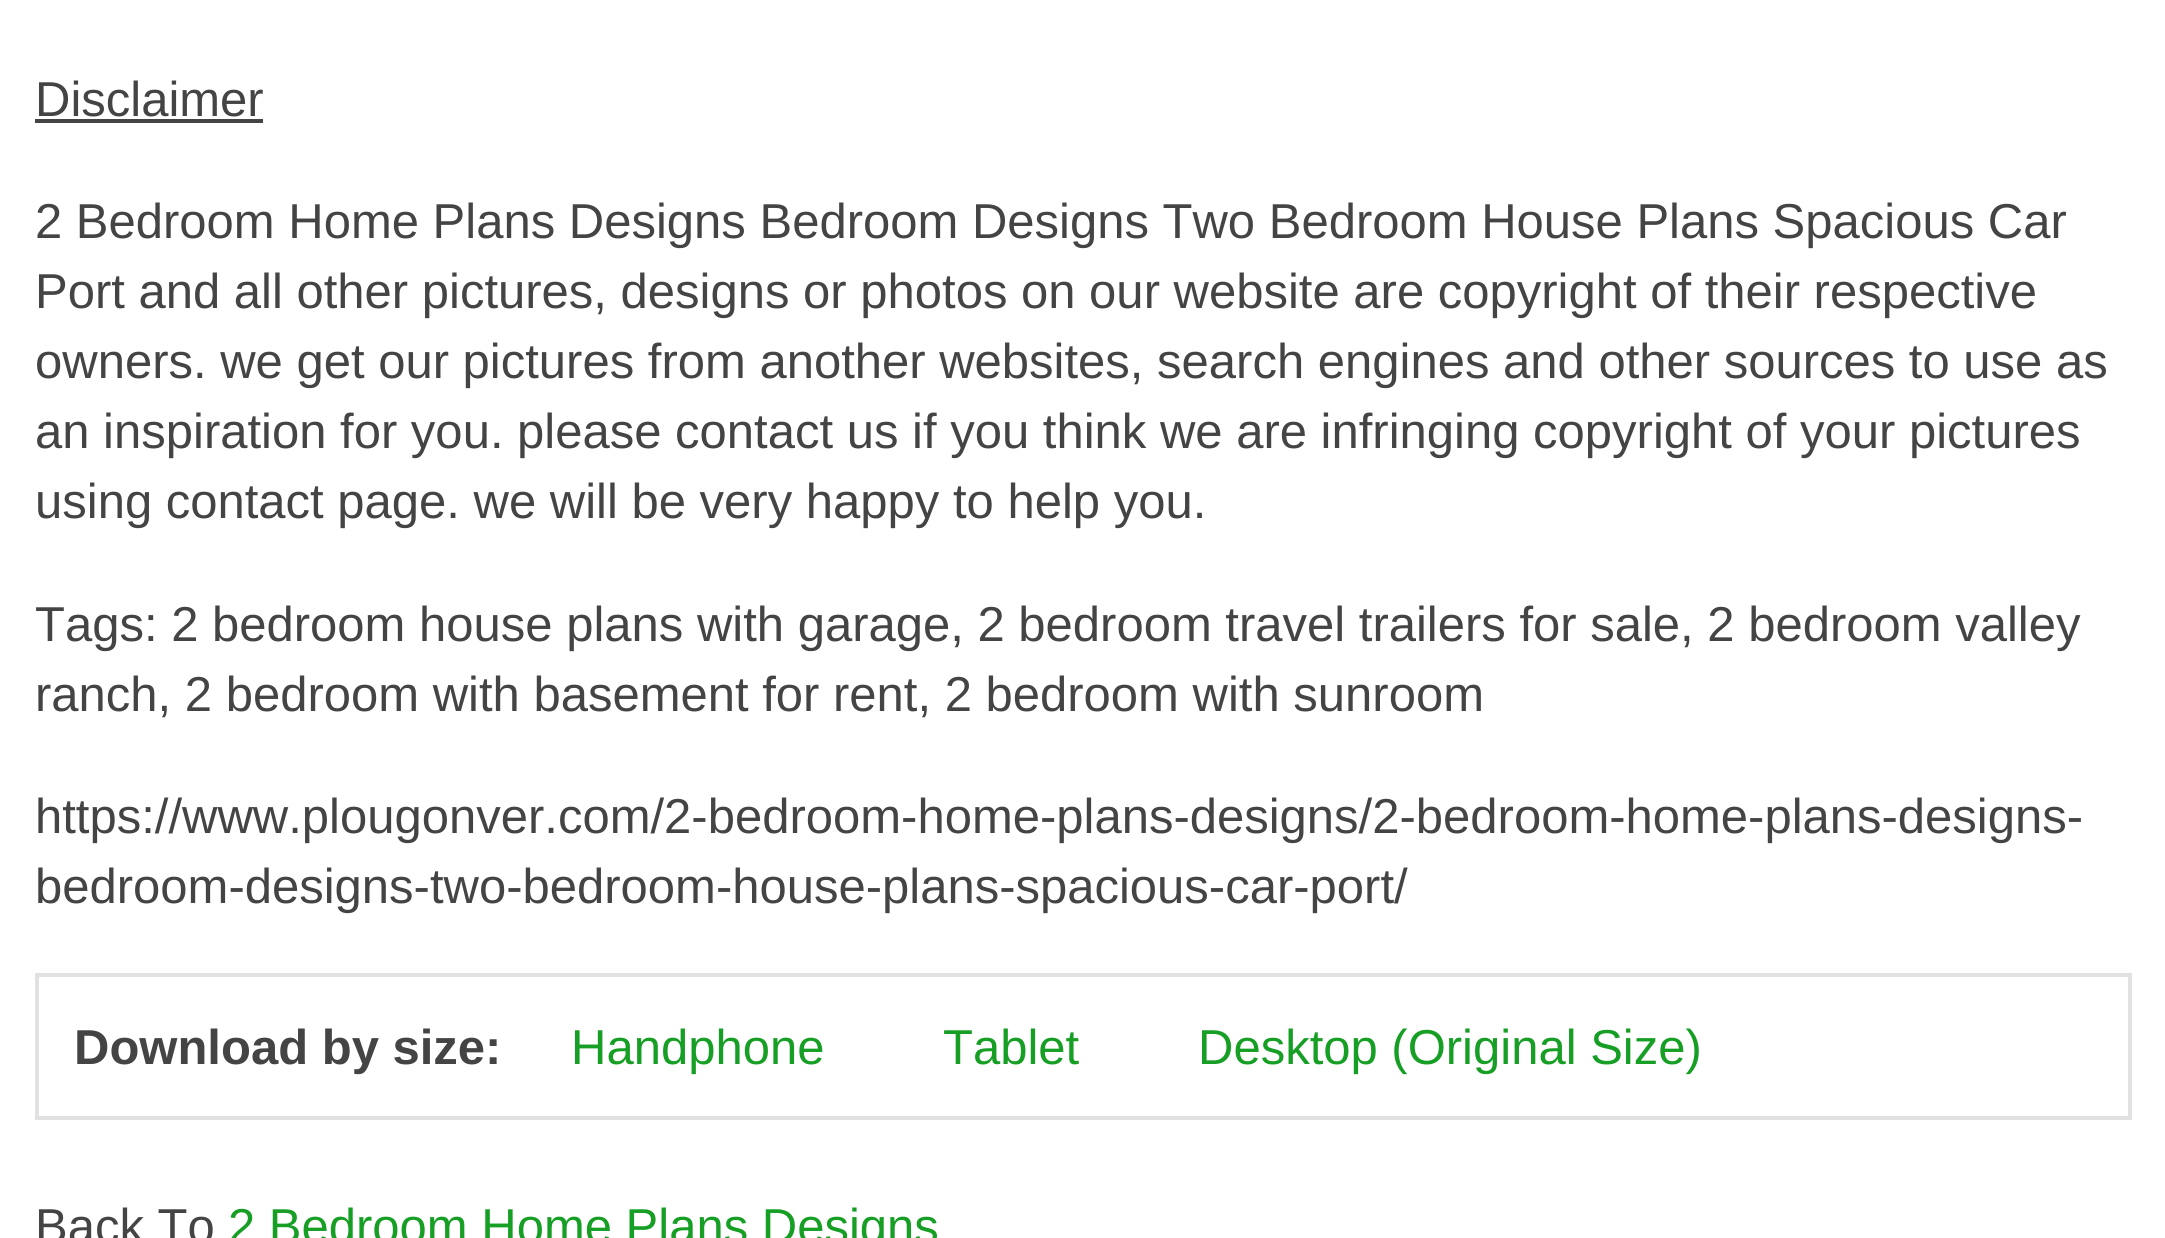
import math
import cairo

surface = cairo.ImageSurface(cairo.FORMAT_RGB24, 2165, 1238)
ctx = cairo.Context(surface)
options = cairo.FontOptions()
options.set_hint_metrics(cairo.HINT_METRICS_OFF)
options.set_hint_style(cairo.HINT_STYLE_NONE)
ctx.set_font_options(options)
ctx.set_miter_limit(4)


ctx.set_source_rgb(1, 1, 1)
ctx.paint()
ctx.select_font_face("Liberation Sans")
ctx.set_font_size(49)
ctx.set_source_rgb(0.267, 0.267, 0.267)
ctx.move_to(35, 116)
ctx.show_text("Disclaimer")
ctx.rectangle(35, 119, 228, 4)
ctx.fill()
ctx.move_to(35, 238)
ctx.show_text("2 Bedroom Home Plans Designs Bedroom Designs Two Bedroom House Plans Spacious Car")
ctx.move_to(35, 308)
ctx.show_text("Port and all other pictures, designs or photos on our website are copyright of their respective")
ctx.move_to(35, 378)
ctx.show_text("owners. we get our pictures from another websites, search engines and other sources to use as")
ctx.move_to(35, 448)
ctx.show_text("an inspiration for you. please contact us if you think we are infringing copyright of your pictures")
ctx.move_to(35, 518)
ctx.show_text("using contact page. we will be very happy to help you.")
ctx.move_to(35, 641)
ctx.show_text("Tags: 2 bedroom house plans with garage, 2 bedroom travel trailers for sale, 2 bedroom valley")
ctx.move_to(35, 711)
ctx.show_text("ranch, 2 bedroom with basement for rent, 2 bedroom with sunroom")
ctx.move_to(35, 833)
ctx.show_text("https://www.plougonver.com/2-bedroom-home-plans-designs/2-bedroom-home-plans-designs-")
ctx.move_to(35, 903)
ctx.show_text("bedroom-designs-two-bedroom-house-plans-spacious-car-port/")
ctx.rectangle(37, 975, 2093, 143)
ctx.set_source_rgb(0.882, 0.882, 0.882)
ctx.set_line_width(4)
ctx.stroke()
ctx.select_font_face("Liberation Sans", cairo.FONT_SLANT_NORMAL, cairo.FONT_WEIGHT_BOLD)
ctx.set_source_rgb(0.267, 0.267, 0.267)
ctx.move_to(74, 1064)
ctx.show_text("Download by size:")
ctx.select_font_face("Liberation Sans")
ctx.set_source_rgb(0.086, 0.62, 0.145)
ctx.move_to(571, 1064)
ctx.show_text("Handphone")
ctx.move_to(943, 1064)
ctx.show_text("Tablet")
ctx.move_to(1198, 1064)
ctx.show_text("Desktop (Original Size)")
ctx.set_source_rgb(0.267, 0.267, 0.267)
ctx.move_to(35, 1243)
ctx.show_text("Back To")
ctx.set_source_rgb(0.086, 0.62, 0.145)
ctx.move_to(228, 1243)
ctx.show_text("2 Bedroom Home Plans Designs")
surface.write_to_png("page.png")
